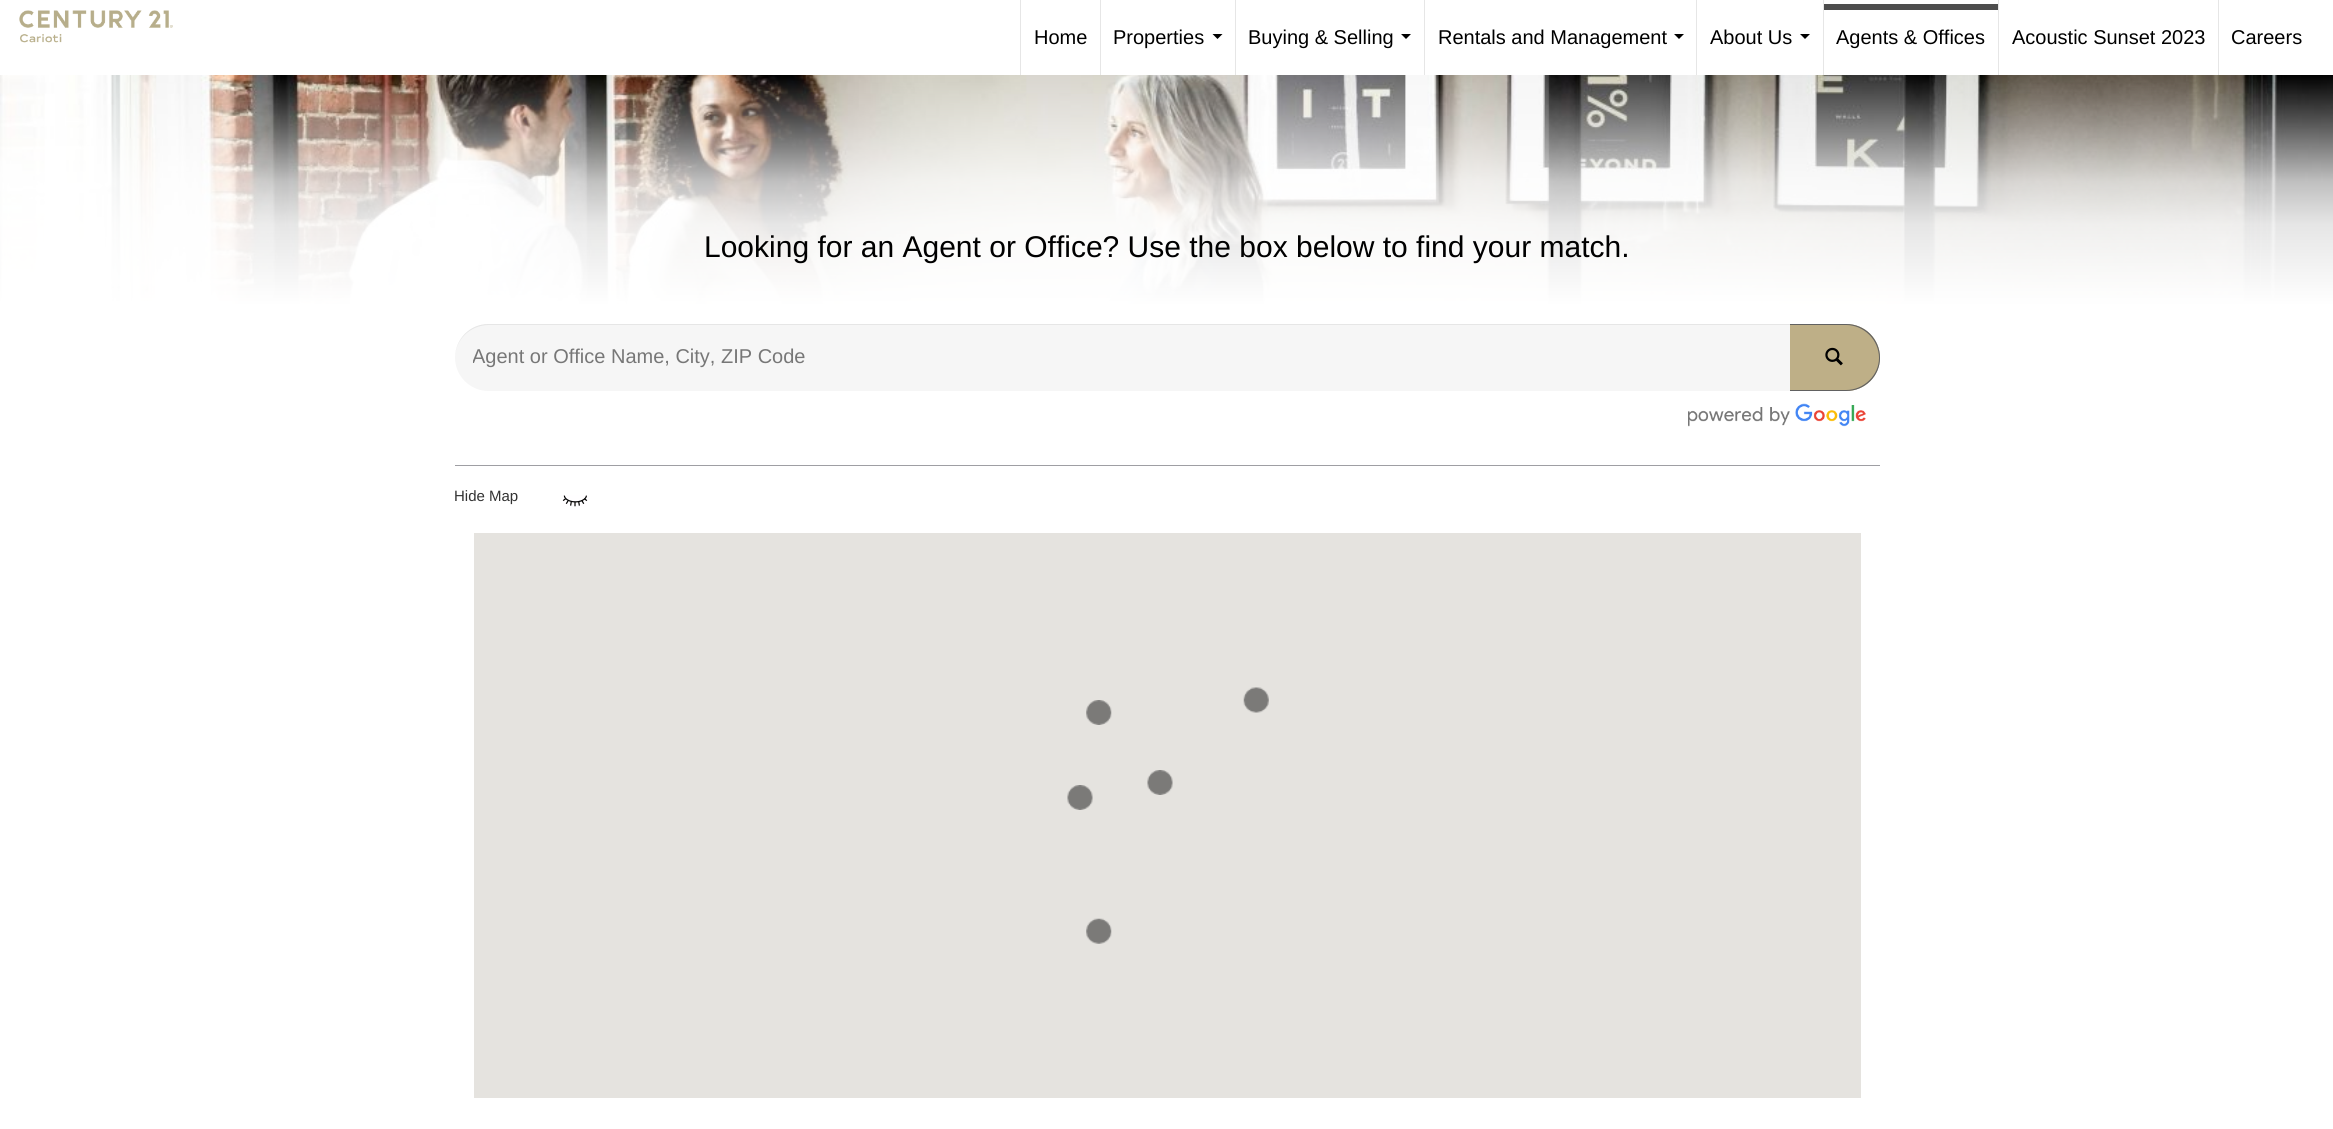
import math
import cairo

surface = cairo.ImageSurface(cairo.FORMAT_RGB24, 2333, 1129)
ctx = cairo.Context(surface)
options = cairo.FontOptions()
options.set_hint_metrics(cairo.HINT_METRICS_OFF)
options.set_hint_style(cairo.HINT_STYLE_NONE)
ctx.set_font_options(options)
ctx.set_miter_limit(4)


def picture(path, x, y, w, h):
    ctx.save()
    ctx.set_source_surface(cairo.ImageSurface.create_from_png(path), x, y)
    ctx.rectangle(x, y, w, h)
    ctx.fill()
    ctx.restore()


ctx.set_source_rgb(1, 1, 1)
ctx.paint()
picture("img1.png", 19, 10, 154, 33)
ctx.set_source_rgb(0.902, 0.902, 0.902)
ctx.rectangle(1020, 0, 1, 75)
ctx.fill()
ctx.select_font_face("Liberation Sans")
ctx.set_font_size(20)
ctx.set_source_rgb(0, 0, 0)
ctx.move_to(1034, 44)
ctx.show_text("Home")
ctx.set_source_rgb(0.902, 0.902, 0.902)
ctx.rectangle(1100, 0, 1, 75)
ctx.fill()
ctx.set_source_rgb(0, 0, 0)
ctx.move_to(1113, 44)
ctx.show_text("Properties")
ctx.new_path()
ctx.move_to(1212.5, 34)
ctx.line_to(1222.5, 34)
ctx.line_to(1217.5, 39)
ctx.close_path()
ctx.fill()
ctx.set_source_rgb(0.902, 0.902, 0.902)
ctx.rectangle(1235, 0, 1, 75)
ctx.fill()
ctx.set_source_rgb(0, 0, 0)
ctx.move_to(1248, 44)
ctx.show_text("Buying & Selling")
ctx.new_path()
ctx.move_to(1401, 34)
ctx.line_to(1411, 34)
ctx.line_to(1406, 39)
ctx.close_path()
ctx.fill()
ctx.set_source_rgb(0.902, 0.902, 0.902)
ctx.rectangle(1424, 0, 1, 75)
ctx.fill()
ctx.set_source_rgb(0, 0, 0)
ctx.move_to(1438, 44)
ctx.show_text("Rentals and Management")
ctx.new_path()
ctx.move_to(1674, 34)
ctx.line_to(1684, 34)
ctx.line_to(1679, 39)
ctx.close_path()
ctx.fill()
ctx.set_source_rgb(0.902, 0.902, 0.902)
ctx.rectangle(1696, 0, 1, 75)
ctx.fill()
ctx.set_source_rgb(0, 0, 0)
ctx.move_to(1710, 44)
ctx.show_text("About Us")
ctx.new_path()
ctx.move_to(1800, 34)
ctx.line_to(1810, 34)
ctx.line_to(1805, 39)
ctx.close_path()
ctx.fill()
ctx.set_source_rgb(0.902, 0.902, 0.902)
ctx.rectangle(1823, 0, 1, 75)
ctx.fill()
ctx.set_source_rgb(0.302, 0.302, 0.302)
ctx.rectangle(1824, 4, 174, 6)
ctx.fill()
ctx.set_source_rgb(0, 0, 0)
ctx.move_to(1836, 44)
ctx.show_text("Agents & Offices")
ctx.set_source_rgb(0.902, 0.902, 0.902)
ctx.rectangle(1998, 0, 1, 75)
ctx.fill()
ctx.set_source_rgb(0, 0, 0)
ctx.move_to(2012, 44)
ctx.show_text("Acoustic Sunset 2023")
ctx.set_source_rgb(0.902, 0.902, 0.902)
ctx.rectangle(2218, 0, 1, 75)
ctx.fill()
ctx.set_source_rgb(0, 0, 0)
ctx.move_to(2231, 44)
ctx.show_text("Careers")
picture("img2.png", 0, 75, 2333, 355)
ctx.set_font_size(30)
ctx.move_to(704, 257)
ctx.show_text("Looking for an Agent or Office? Use the box below to find your match.")
ctx.set_source_rgb(0.961, 0.961, 0.961)
ctx.new_path()
ctx.move_to(488.5, 324)
ctx.line_to(1791, 324)
ctx.line_to(1791, 391)
ctx.line_to(488.5, 391)
ctx.curve_to(470, 391, 455, 376, 455, 357.5)
ctx.curve_to(455, 339, 470, 324, 488.5, 324)
ctx.close_path()
ctx.fill()
ctx.set_source_rgba(0, 0, 0, 0.07)
ctx.new_path()
ctx.move_to(489, 325)
ctx.line_to(1791, 325)
ctx.line_to(1791, 324)
ctx.line_to(488, 324)
ctx.curve_to(470, 324, 455, 339, 455, 358)
ctx.curve_to(455, 340, 470, 325, 489, 325)
ctx.close_path()
ctx.fill()
ctx.save()
ctx.rectangle(473, 346, 1306, 23)
ctx.clip()
ctx.set_font_size(20)
ctx.set_source_rgb(0.467, 0.467, 0.467)
ctx.move_to(472, 363)
ctx.show_text("Agent or Office Name, City, ZIP Code")
ctx.restore()
ctx.set_source_rgb(0.745, 0.686, 0.529)
ctx.new_path()
ctx.move_to(1790, 324)
ctx.line_to(1846.5, 324)
ctx.curve_to(1865, 324, 1880, 339, 1880, 357.5)
ctx.curve_to(1880, 376, 1865, 391, 1846.5, 391)
ctx.line_to(1790, 391)
ctx.close_path()
ctx.fill()
ctx.set_source_rgb(0.38, 0.38, 0.38)
ctx.set_fill_rule(cairo.FILL_RULE_EVEN_ODD)
ctx.new_path()
ctx.move_to(1790, 324)
ctx.line_to(1846, 324)
ctx.curve_to(1865, 324, 1880, 339, 1880, 358)
ctx.curve_to(1880, 376, 1865, 391, 1846, 391)
ctx.line_to(1790, 391)
ctx.close_path()
ctx.move_to(1790, 325)
ctx.line_to(1846, 325)
ctx.curve_to(1864, 325, 1879, 340, 1879, 358)
ctx.curve_to(1879, 375, 1864, 390, 1846, 390)
ctx.line_to(1790, 390)
ctx.close_path()
ctx.fill()
picture("img3.png", 1825, 347, 18, 19)
picture("img4.png", 1688, 403, 178, 24)
ctx.set_source_rgb(0.62, 0.62, 0.639)
ctx.rectangle(455, 465, 1425, 1)
ctx.fill()
ctx.set_font_size(15)
ctx.set_source_rgb(0.2, 0.2, 0.2)
ctx.move_to(454, 501)
ctx.show_text("Hide Map")
picture("img5.png", 562, 495, 26, 12)
ctx.set_source_rgb(0.898, 0.89, 0.875)
ctx.rectangle(474, 533, 1387, 565)
ctx.fill()
picture("img6.png", 1086, 700, 26, 25)
picture("img7.png", 1243, 687, 26, 26)
picture("img8.png", 1147, 770, 26, 25)
picture("img8.png", 1067, 785, 26, 25)
picture("img9.png", 1086, 918, 26, 26)
surface.write_to_png("page.png")
